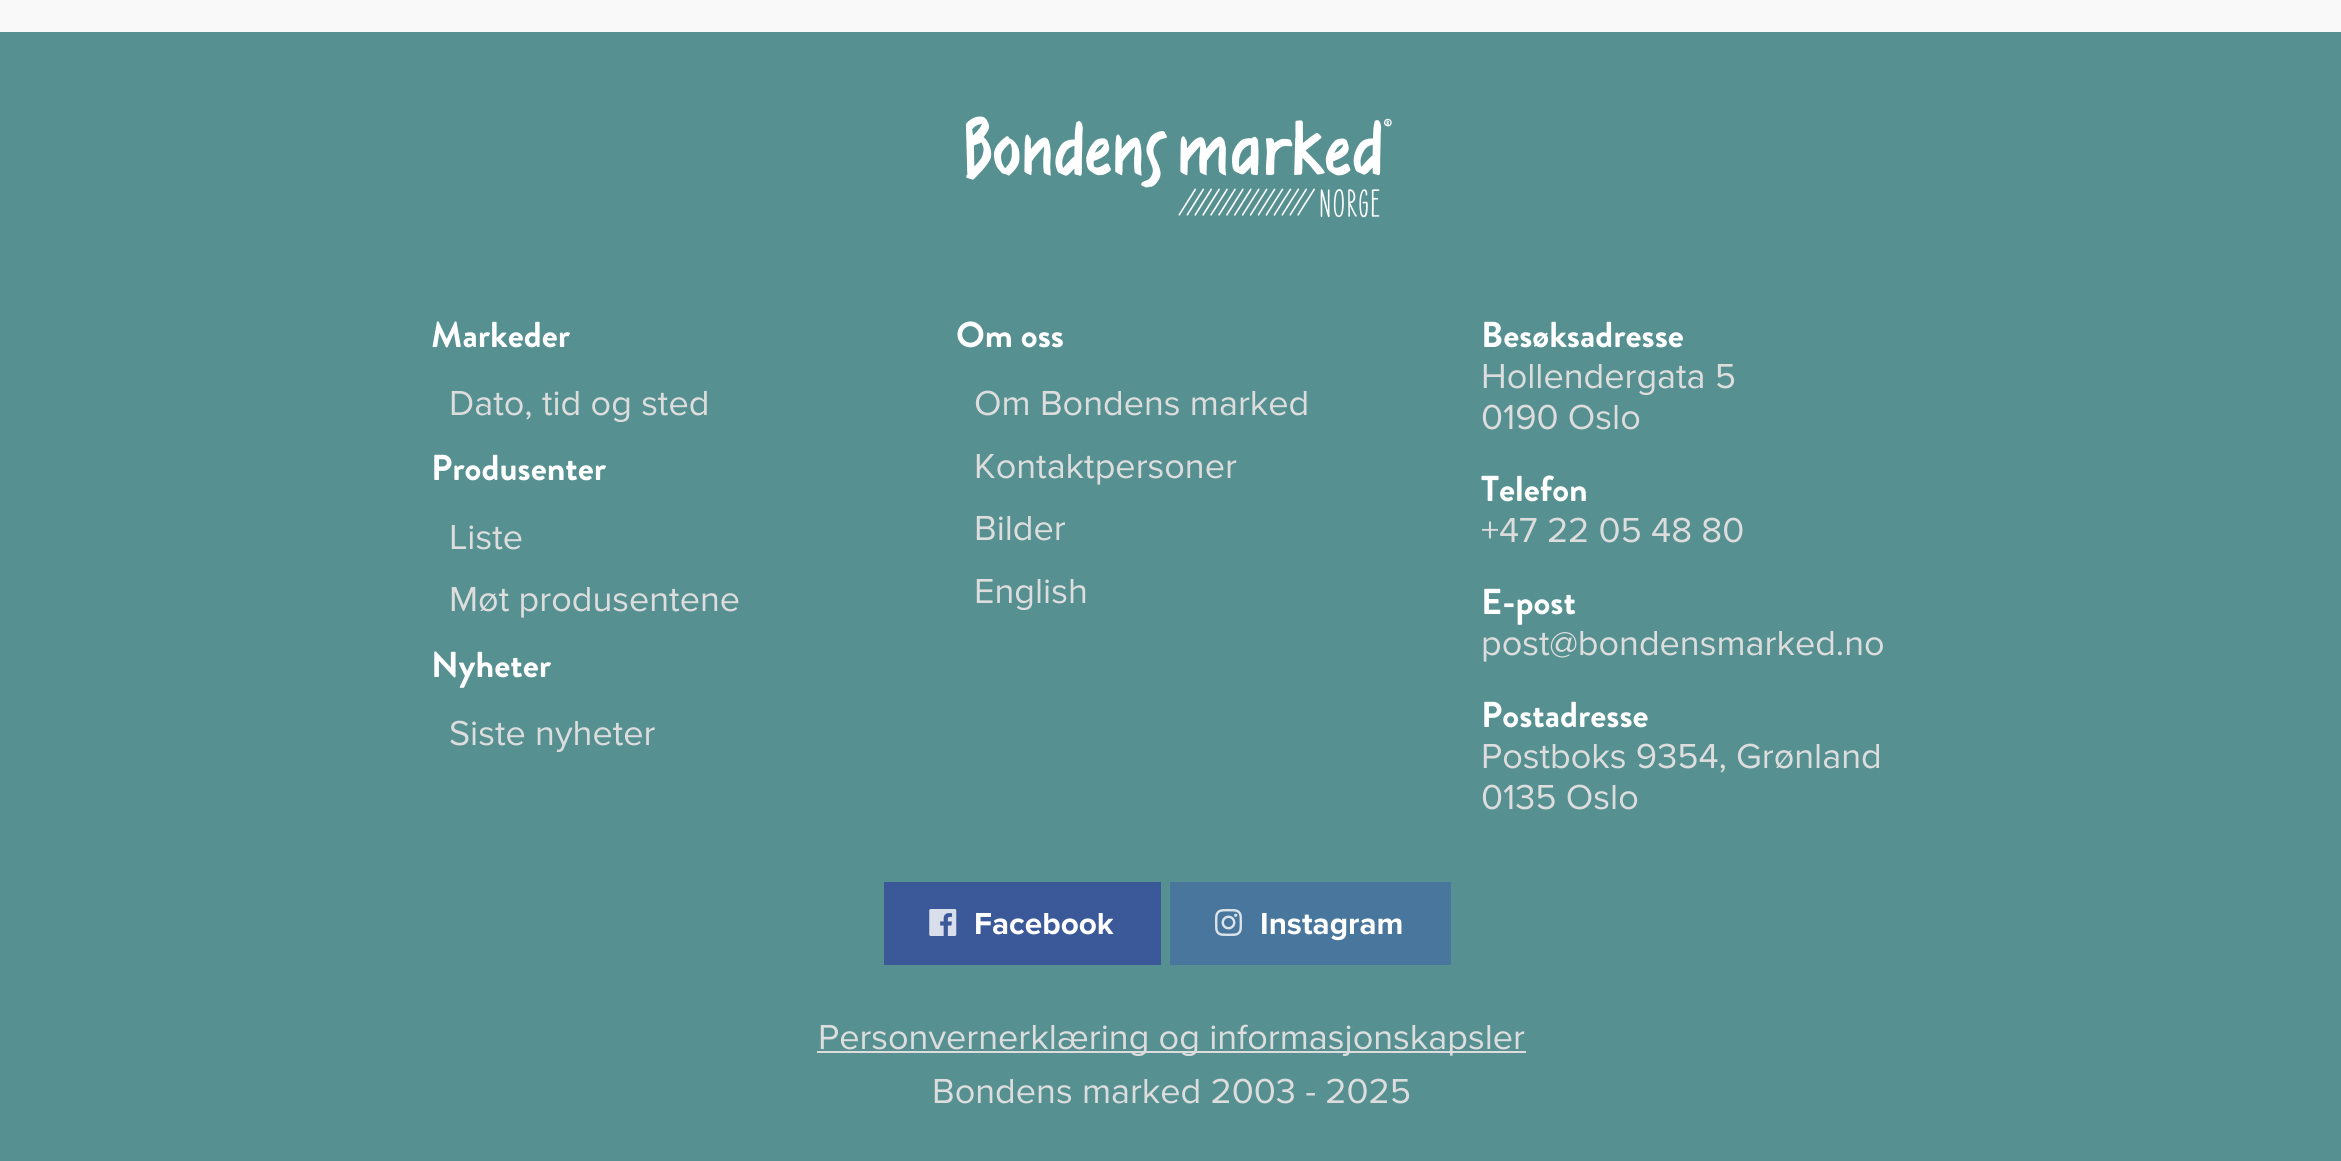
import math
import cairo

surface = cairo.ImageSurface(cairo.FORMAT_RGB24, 2341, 1161)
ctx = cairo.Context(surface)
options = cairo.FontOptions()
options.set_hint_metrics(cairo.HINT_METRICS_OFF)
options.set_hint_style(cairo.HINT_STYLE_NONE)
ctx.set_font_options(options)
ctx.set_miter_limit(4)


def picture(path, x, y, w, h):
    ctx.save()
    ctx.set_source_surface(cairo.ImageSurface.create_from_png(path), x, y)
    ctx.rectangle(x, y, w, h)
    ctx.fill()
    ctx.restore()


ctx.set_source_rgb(0.973, 0.973, 0.976)
ctx.paint()
ctx.set_source_rgb(0.337, 0.565, 0.569)
ctx.rectangle(0, 32, 2341, 1129)
ctx.fill()
picture("img1.png", 965, 116, 427, 102)
ctx.select_font_face("Brandon Grotesque", cairo.FONT_SLANT_NORMAL, cairo.FONT_WEIGHT_BOLD)
ctx.set_font_size(36)
ctx.set_source_rgb(1, 1, 1)
ctx.move_to(431, 347)
ctx.show_text("Markeder")
ctx.select_font_face("Proxima Nova")
ctx.set_source_rgb(0.867, 0.867, 0.867)
ctx.move_to(449, 415)
ctx.show_text("Dato, tid og sted")
ctx.select_font_face("Brandon Grotesque", cairo.FONT_SLANT_NORMAL, cairo.FONT_WEIGHT_BOLD)
ctx.set_source_rgb(1, 1, 1)
ctx.move_to(431, 480)
ctx.show_text("Produsenter")
ctx.select_font_face("Proxima Nova")
ctx.set_source_rgb(0.867, 0.867, 0.867)
ctx.move_to(449, 549)
ctx.show_text("Liste")
ctx.move_to(449, 611)
ctx.show_text("Møt produsentene")
ctx.select_font_face("Brandon Grotesque", cairo.FONT_SLANT_NORMAL, cairo.FONT_WEIGHT_BOLD)
ctx.set_source_rgb(1, 1, 1)
ctx.move_to(431, 677)
ctx.show_text("Nyheter")
ctx.select_font_face("Proxima Nova")
ctx.set_source_rgb(0.867, 0.867, 0.867)
ctx.move_to(449, 745)
ctx.show_text("Siste nyheter")
ctx.select_font_face("Brandon Grotesque", cairo.FONT_SLANT_NORMAL, cairo.FONT_WEIGHT_BOLD)
ctx.set_source_rgb(1, 1, 1)
ctx.move_to(956, 347)
ctx.show_text("Om oss")
ctx.select_font_face("Proxima Nova")
ctx.set_source_rgb(0.867, 0.867, 0.867)
ctx.move_to(974, 415)
ctx.show_text("Om Bondens marked")
ctx.move_to(974, 478)
ctx.show_text("Kontaktpersoner")
ctx.move_to(974, 540)
ctx.show_text("Bilder")
ctx.move_to(974, 603)
ctx.show_text("English")
ctx.select_font_face("Brandon Grotesque", cairo.FONT_SLANT_NORMAL, cairo.FONT_WEIGHT_BOLD)
ctx.set_source_rgb(1, 1, 1)
ctx.move_to(1481, 347)
ctx.show_text("Besøksadresse")
ctx.select_font_face("Proxima Nova")
ctx.set_source_rgb(0.867, 0.867, 0.867)
ctx.move_to(1481, 388)
ctx.show_text("Hollendergata 5")
ctx.move_to(1481, 429)
ctx.show_text("0190 Oslo")
ctx.select_font_face("Brandon Grotesque", cairo.FONT_SLANT_NORMAL, cairo.FONT_WEIGHT_BOLD)
ctx.set_source_rgb(1, 1, 1)
ctx.move_to(1481, 501)
ctx.show_text("Telefon")
ctx.select_font_face("Proxima Nova")
ctx.set_source_rgb(0.867, 0.867, 0.867)
ctx.move_to(1481, 542)
ctx.show_text("+47 22 05 48 80")
ctx.select_font_face("Brandon Grotesque", cairo.FONT_SLANT_NORMAL, cairo.FONT_WEIGHT_BOLD)
ctx.set_source_rgb(1, 1, 1)
ctx.move_to(1481, 614)
ctx.show_text("E-post")
ctx.select_font_face("Proxima Nova")
ctx.set_source_rgb(0.867, 0.867, 0.867)
ctx.move_to(1481, 655)
ctx.show_text("post@bondensmarked.no")
ctx.select_font_face("Brandon Grotesque", cairo.FONT_SLANT_NORMAL, cairo.FONT_WEIGHT_BOLD)
ctx.set_source_rgb(1, 1, 1)
ctx.move_to(1481, 727)
ctx.show_text("Postadresse")
ctx.select_font_face("Proxima Nova")
ctx.set_source_rgb(0.867, 0.867, 0.867)
ctx.move_to(1481, 768)
ctx.show_text("Postboks 9354, Grønland")
ctx.move_to(1481, 809)
ctx.show_text("0135 Oslo")
ctx.set_source_rgb(0.231, 0.349, 0.596)
ctx.rectangle(884, 882, 277, 83)
ctx.fill()
picture("img2.png", 929, 909, 28, 27)
ctx.select_font_face("Proxima Nova", cairo.FONT_SLANT_NORMAL, cairo.FONT_WEIGHT_BOLD)
ctx.set_font_size(31.5)
ctx.set_source_rgb(1, 1, 1)
ctx.move_to(974, 934)
ctx.show_text("Facebook")
ctx.set_source_rgb(0.286, 0.463, 0.612)
ctx.rectangle(1170, 882, 281, 83)
ctx.fill()
picture("img3.png", 1215, 909, 27, 27)
ctx.set_source_rgb(1, 1, 1)
ctx.move_to(1260, 934)
ctx.show_text("Instagram")
ctx.set_source_rgb(0.867, 0.867, 0.867)
ctx.rectangle(817, 1051, 709, 2)
ctx.fill()
ctx.select_font_face("Proxima Nova")
ctx.set_font_size(36)
ctx.move_to(818, 1049)
ctx.show_text("Personvernerklæring og informasjonskapsler")
ctx.move_to(932, 1103)
ctx.show_text("Bondens marked 2003 - 2025")
surface.write_to_png("page.png")
